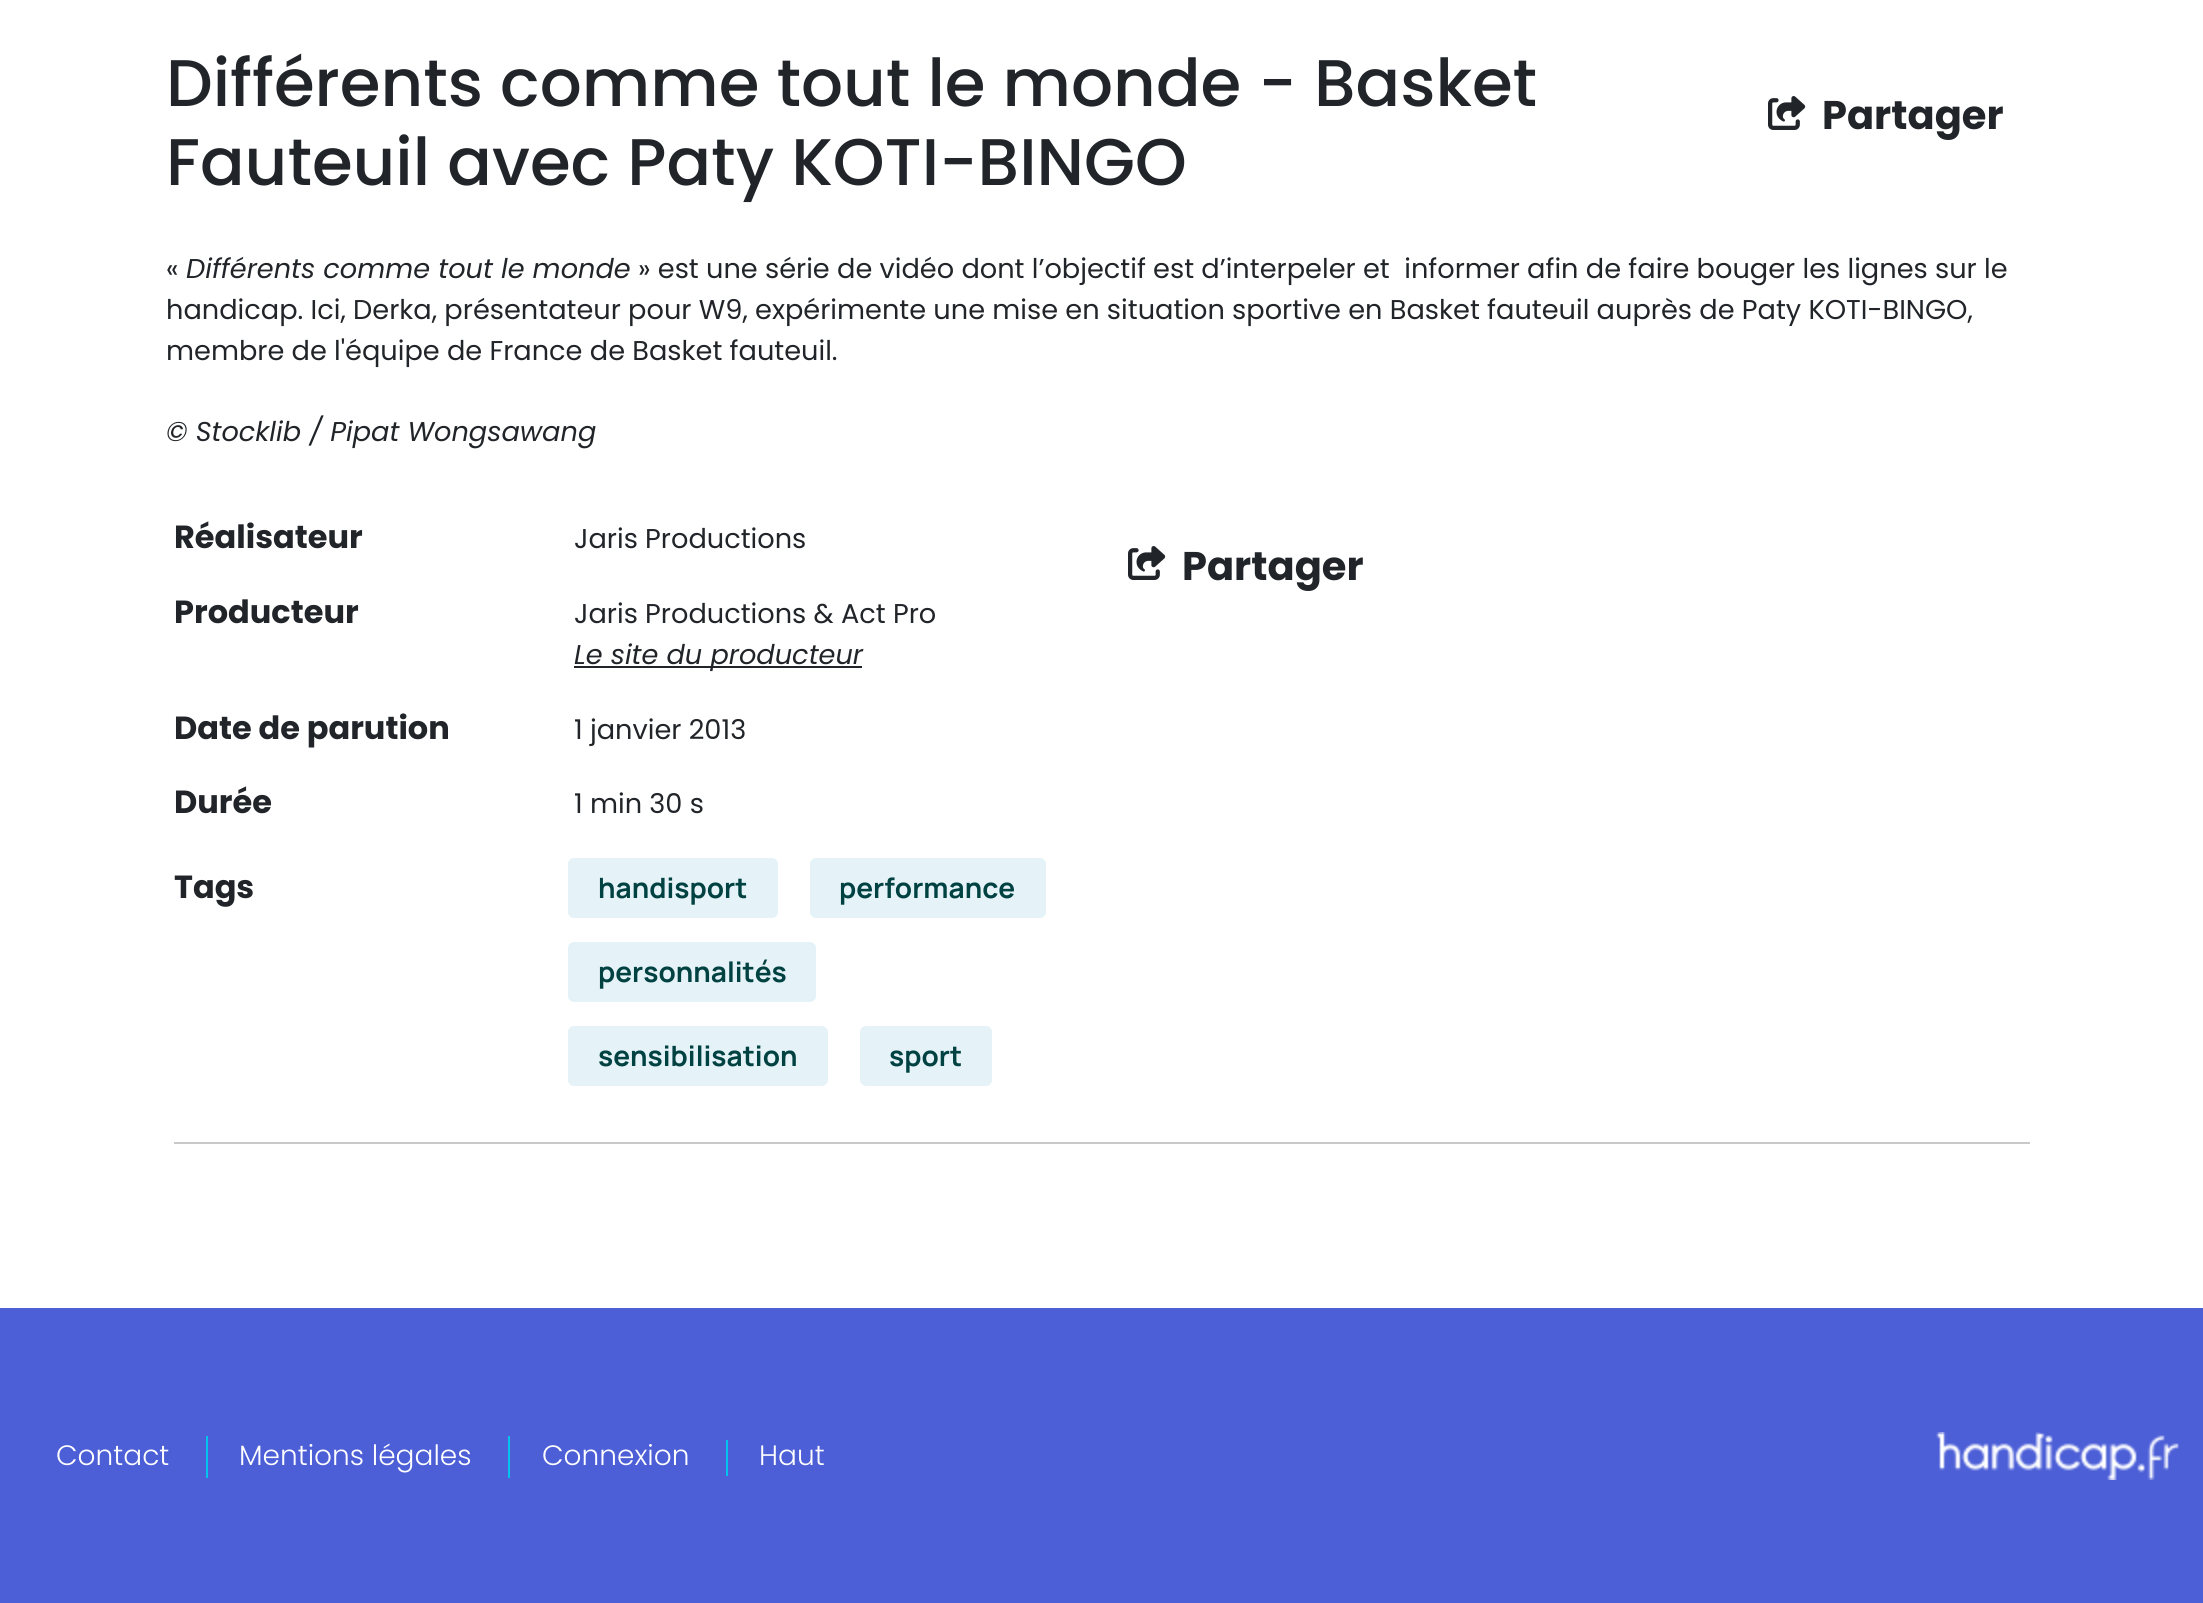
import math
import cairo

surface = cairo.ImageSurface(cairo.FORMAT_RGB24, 2203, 1603)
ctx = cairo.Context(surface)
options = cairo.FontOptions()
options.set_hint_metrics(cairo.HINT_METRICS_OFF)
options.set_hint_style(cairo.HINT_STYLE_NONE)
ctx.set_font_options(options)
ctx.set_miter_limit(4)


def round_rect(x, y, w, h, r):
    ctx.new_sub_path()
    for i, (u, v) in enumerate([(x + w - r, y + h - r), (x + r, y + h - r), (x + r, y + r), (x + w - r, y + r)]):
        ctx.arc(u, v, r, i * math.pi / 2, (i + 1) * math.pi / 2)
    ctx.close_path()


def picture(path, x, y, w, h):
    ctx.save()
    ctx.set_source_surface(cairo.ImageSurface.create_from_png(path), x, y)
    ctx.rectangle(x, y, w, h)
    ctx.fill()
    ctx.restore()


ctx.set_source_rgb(1, 1, 1)
ctx.paint()
ctx.select_font_face("Poppins Medium")
ctx.set_font_size(65.9)
ctx.set_source_rgb(0.129, 0.145, 0.161)
ctx.move_to(166, 106)
ctx.show_text("Différents comme tout le monde - Basket")
ctx.move_to(166, 185)
ctx.show_text("Fauteuil avec Paty KOTI-BINGO")
picture("img1.png", 1768, 96, 38, 34)
ctx.select_font_face("Poppins", cairo.FONT_SLANT_NORMAL, cairo.FONT_WEIGHT_BOLD)
ctx.set_font_size(40)
ctx.move_to(1822, 129)
ctx.show_text("Partager")
ctx.select_font_face("Poppins")
ctx.set_font_size(27.2)
ctx.move_to(166, 278)
ctx.show_text("«")
ctx.select_font_face("Poppins", cairo.FONT_SLANT_ITALIC)
ctx.move_to(186, 278)
ctx.show_text("Différents comme tout le monde")
ctx.select_font_face("Poppins")
ctx.move_to(638, 278)
ctx.show_text("» est une série de vidéo dont l’objectif est d’interpeler et  informer afin de faire bouger les lignes sur le")
ctx.move_to(166, 319)
ctx.show_text("handicap. Ici, Derka, présentateur pour W9, expérimente une mise en situation sportive en Basket fauteuil auprès de Paty KOTI-BINGO,")
ctx.move_to(166, 360)
ctx.show_text("membre de l'équipe de France de Basket fauteuil.")
ctx.select_font_face("Poppins", cairo.FONT_SLANT_ITALIC)
ctx.move_to(166, 441)
ctx.show_text("© Stocklib / Pipat Wongsawang")
ctx.select_font_face("Poppins", cairo.FONT_SLANT_NORMAL, cairo.FONT_WEIGHT_BOLD)
ctx.set_font_size(32)
ctx.move_to(174, 548)
ctx.show_text("Réalisateur")
ctx.select_font_face("Poppins")
ctx.set_font_size(27.2)
ctx.move_to(574, 548)
ctx.show_text("Jaris Productions")
ctx.select_font_face("Poppins", cairo.FONT_SLANT_NORMAL, cairo.FONT_WEIGHT_BOLD)
ctx.set_font_size(32)
ctx.move_to(174, 623)
ctx.show_text("Producteur")
ctx.select_font_face("Poppins")
ctx.set_font_size(27.2)
ctx.move_to(574, 623)
ctx.show_text("Jaris Productions & Act Pro")
ctx.rectangle(574, 666, 288, 2)
ctx.fill()
ctx.select_font_face("Poppins", cairo.FONT_SLANT_ITALIC)
ctx.move_to(574, 664)
ctx.show_text("Le site du producteur")
ctx.select_font_face("Poppins", cairo.FONT_SLANT_NORMAL, cairo.FONT_WEIGHT_BOLD)
ctx.set_font_size(32)
ctx.move_to(174, 739)
ctx.show_text("Date de parution")
ctx.select_font_face("Poppins")
ctx.set_font_size(27.2)
ctx.move_to(574, 739)
ctx.show_text("1 janvier 2013")
ctx.select_font_face("Poppins", cairo.FONT_SLANT_NORMAL, cairo.FONT_WEIGHT_BOLD)
ctx.set_font_size(32)
ctx.move_to(174, 813)
ctx.show_text("Durée")
ctx.select_font_face("Poppins")
ctx.set_font_size(27.2)
ctx.move_to(574, 813)
ctx.show_text("1 min 30 s")
ctx.select_font_face("Poppins", cairo.FONT_SLANT_NORMAL, cairo.FONT_WEIGHT_BOLD)
ctx.set_font_size(32)
ctx.move_to(174, 898)
ctx.show_text("Tags")
ctx.set_source_rgb(0.898, 0.949, 0.965)
round_rect(568, 858, 210, 60, 6)
ctx.fill()
ctx.select_font_face("Manrope", cairo.FONT_SLANT_NORMAL, cairo.FONT_WEIGHT_BOLD)
ctx.set_font_size(28)
ctx.set_source_rgb(0, 0.259, 0.259)
ctx.move_to(598, 898)
ctx.show_text("handisport")
ctx.set_source_rgb(0.898, 0.949, 0.965)
round_rect(810, 858, 236, 60, 6)
ctx.fill()
ctx.set_source_rgb(0, 0.259, 0.259)
ctx.move_to(839, 898)
ctx.show_text("performance")
ctx.set_source_rgb(0.898, 0.949, 0.965)
round_rect(568, 942, 248, 60, 6)
ctx.fill()
ctx.set_source_rgb(0, 0.259, 0.259)
ctx.move_to(598, 982)
ctx.show_text("personnalités")
ctx.set_source_rgb(0.898, 0.949, 0.965)
round_rect(568, 1026, 260, 60, 6)
ctx.fill()
ctx.set_source_rgb(0, 0.259, 0.259)
ctx.move_to(598, 1066)
ctx.show_text("sensibilisation")
ctx.set_source_rgb(0.898, 0.949, 0.965)
round_rect(860, 1026, 132, 60, 6)
ctx.fill()
ctx.set_source_rgb(0, 0.259, 0.259)
ctx.move_to(889, 1066)
ctx.show_text("sport")
picture("img1.png", 1128, 546, 38, 34)
ctx.select_font_face("Poppins", cairo.FONT_SLANT_NORMAL, cairo.FONT_WEIGHT_BOLD)
ctx.set_font_size(40)
ctx.set_source_rgb(0.129, 0.145, 0.161)
ctx.move_to(1182, 580)
ctx.show_text("Partager")
ctx.set_source_rgb(0.784, 0.788, 0.792)
ctx.rectangle(174, 1142, 1856, 2)
ctx.fill()
ctx.set_source_rgb(0.298, 0.373, 0.843)
ctx.rectangle(0, 1308, 2203, 295)
ctx.fill()
ctx.set_source_rgb(0.012, 0.765, 0.925)
ctx.rectangle(206, 1436, 2, 42)
ctx.fill()
ctx.select_font_face("Poppins Light")
ctx.set_font_size(28)
ctx.set_source_rgb(1, 1, 1)
ctx.move_to(56, 1465)
ctx.show_text("Contact")
ctx.set_source_rgb(0.012, 0.765, 0.925)
ctx.rectangle(508, 1436, 2, 42)
ctx.fill()
ctx.set_source_rgb(1, 1, 1)
ctx.move_to(239, 1465)
ctx.show_text("Mentions légales")
ctx.set_source_rgb(0.012, 0.765, 0.925)
ctx.rectangle(726, 1440, 2, 36)
ctx.fill()
ctx.set_source_rgb(1, 1, 1)
ctx.move_to(542, 1465)
ctx.show_text("Connexion")
ctx.move_to(759, 1465)
ctx.show_text("Haut")
picture("img2.png", 1936, 1432, 243, 48)
surface.write_to_png("page.png")
